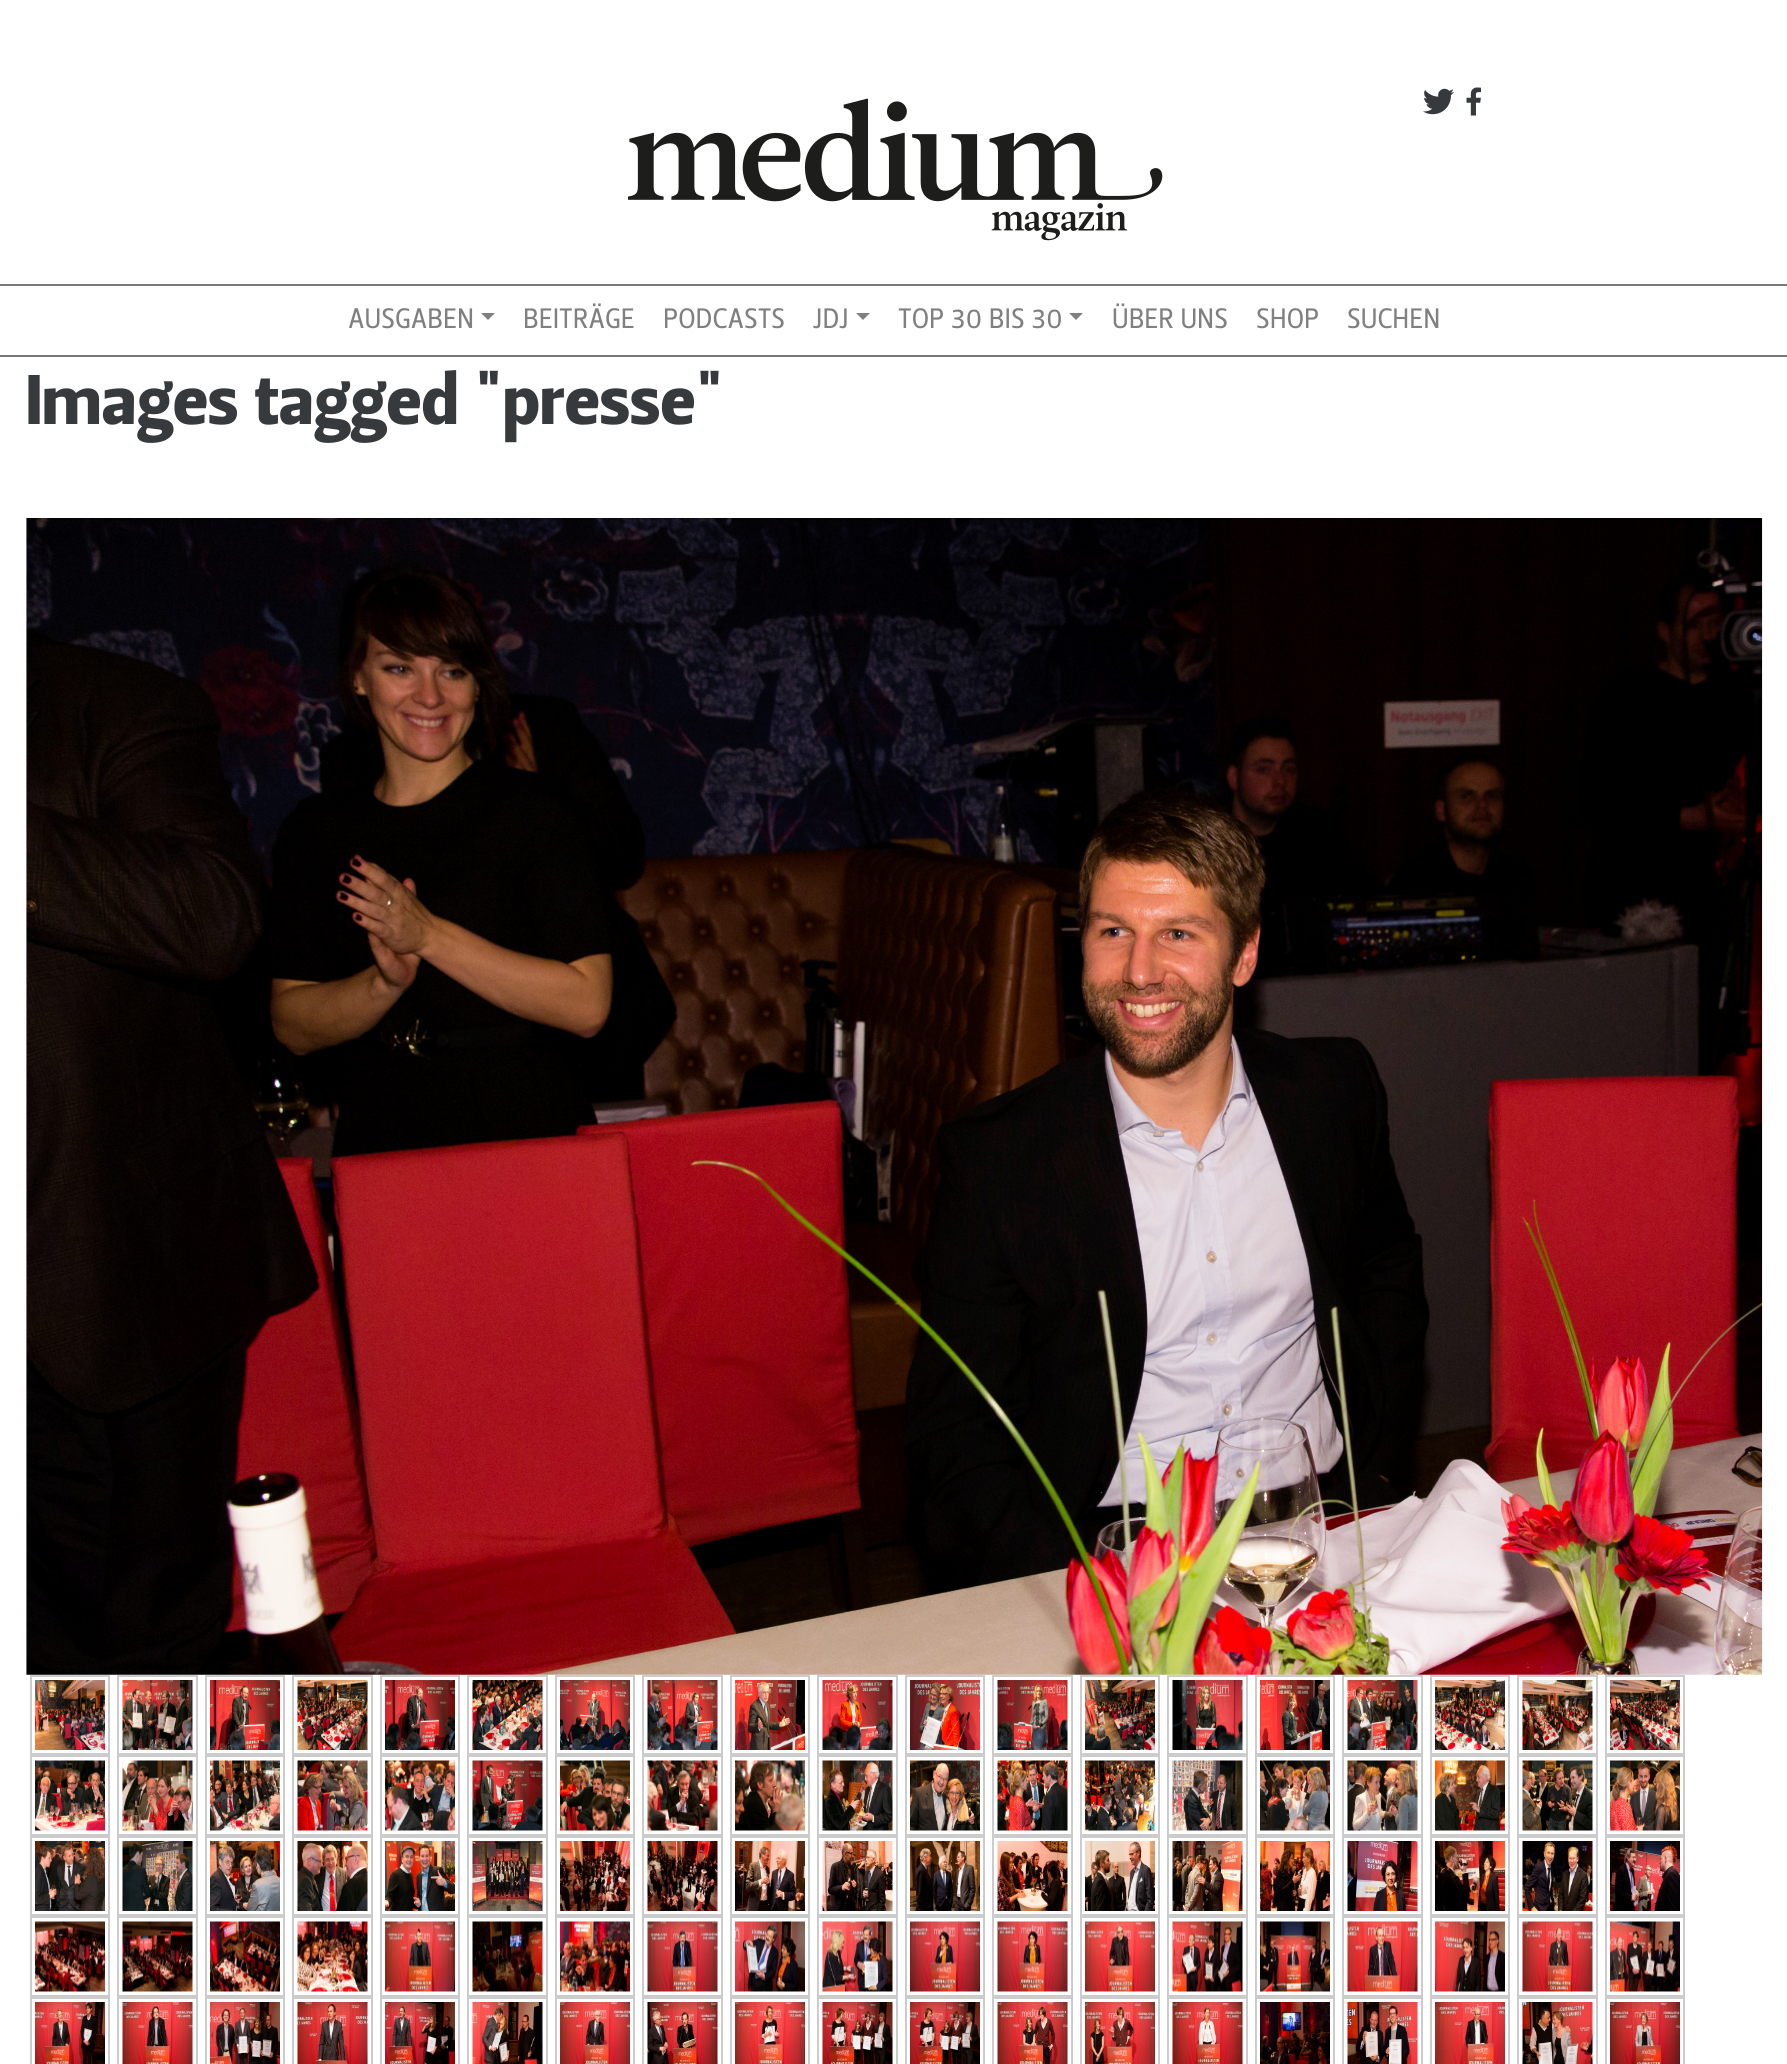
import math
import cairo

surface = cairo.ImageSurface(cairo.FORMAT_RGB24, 1787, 2064)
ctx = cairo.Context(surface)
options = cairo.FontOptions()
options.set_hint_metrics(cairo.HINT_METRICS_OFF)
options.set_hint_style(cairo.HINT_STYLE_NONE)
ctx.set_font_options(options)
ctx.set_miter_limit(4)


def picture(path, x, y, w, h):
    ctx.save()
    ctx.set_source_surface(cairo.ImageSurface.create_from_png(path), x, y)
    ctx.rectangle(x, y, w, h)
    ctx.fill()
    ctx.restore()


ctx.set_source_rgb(1, 1, 1)
ctx.paint()
picture("img1.png", 628, 98, 535, 143)
picture("img2.png", 1423, 88, 31, 27)
picture("img3.png", 1466, 87, 15, 29)
ctx.set_source_rgb(0.49, 0.471, 0.471)
ctx.rectangle(0, 284, 1787, 2)
ctx.fill()
ctx.rectangle(0, 355, 1787, 2)
ctx.fill()
ctx.select_font_face("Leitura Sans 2")
ctx.set_font_size(28)
ctx.set_source_rgb(0.502, 0.502, 0.502)
ctx.move_to(348, 328)
ctx.show_text("AUSGABEN")
ctx.new_path()
ctx.move_to(481, 313)
ctx.line_to(495, 313)
ctx.line_to(488, 320)
ctx.close_path()
ctx.fill()
ctx.move_to(523, 328)
ctx.show_text("BEITRÄGE")
ctx.move_to(663, 328)
ctx.show_text("PODCASTS")
ctx.move_to(813, 328)
ctx.show_text("JDJ")
ctx.new_path()
ctx.move_to(856, 313)
ctx.line_to(870, 313)
ctx.line_to(863, 320)
ctx.close_path()
ctx.fill()
ctx.move_to(898, 328)
ctx.show_text("TOP 30 BIS 30")
ctx.new_path()
ctx.move_to(1069, 313)
ctx.line_to(1083, 313)
ctx.line_to(1076, 320)
ctx.close_path()
ctx.fill()
ctx.move_to(1112, 328)
ctx.show_text("ÜBER UNS")
ctx.move_to(1256, 328)
ctx.show_text("SHOP")
ctx.move_to(1347, 328)
ctx.show_text("SUCHEN")
ctx.select_font_face("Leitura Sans")
ctx.set_font_size(70)
ctx.set_source_rgb(0.216, 0.227, 0.235)
ctx.move_to(26, 424)
ctx.show_text("Images tagged \"presse\"")
picture("img4.png", 26, 518, 1737, 1157)
ctx.rectangle(31, 1676, 78, 78)
ctx.set_source_rgb(0.8, 0.8, 0.8)
ctx.stroke()
picture("img5.png", 35, 1680, 70, 70)
ctx.rectangle(118, 1676, 79, 78)
ctx.stroke()
picture("img6.png", 122, 1680, 71, 70)
ctx.rectangle(206, 1676, 78, 78)
ctx.stroke()
picture("img7.png", 210, 1680, 70, 70)
ctx.rectangle(293, 1676, 79, 78)
ctx.stroke()
picture("img8.png", 297, 1680, 71, 70)
ctx.rectangle(381, 1676, 78, 78)
ctx.stroke()
picture("img9.png", 385, 1680, 70, 70)
ctx.rectangle(468, 1676, 79, 78)
ctx.stroke()
picture("img10.png", 472, 1680, 71, 70)
ctx.rectangle(556, 1676, 78, 78)
ctx.stroke()
picture("img11.png", 560, 1680, 70, 70)
ctx.rectangle(643, 1676, 79, 78)
ctx.stroke()
picture("img12.png", 647, 1680, 71, 70)
ctx.rectangle(731, 1676, 78, 78)
ctx.stroke()
picture("img13.png", 735, 1680, 70, 70)
ctx.rectangle(818, 1676, 79, 78)
ctx.stroke()
picture("img14.png", 822, 1680, 71, 70)
ctx.rectangle(906, 1676, 78, 78)
ctx.stroke()
picture("img15.png", 910, 1680, 70, 70)
ctx.rectangle(993, 1676, 79, 78)
ctx.stroke()
picture("img16.png", 997, 1680, 71, 70)
ctx.rectangle(1081, 1676, 78, 78)
ctx.stroke()
picture("img17.png", 1085, 1680, 70, 70)
ctx.rectangle(1168, 1676, 79, 78)
ctx.stroke()
picture("img18.png", 1172, 1680, 71, 70)
ctx.rectangle(1256, 1676, 78, 78)
ctx.stroke()
picture("img19.png", 1260, 1680, 70, 70)
ctx.rectangle(1343, 1676, 79, 78)
ctx.stroke()
picture("img20.png", 1347, 1680, 71, 70)
ctx.rectangle(1431, 1676, 78, 78)
ctx.stroke()
picture("img21.png", 1435, 1680, 70, 70)
ctx.rectangle(1518, 1676, 79, 78)
ctx.stroke()
picture("img22.png", 1522, 1680, 71, 70)
ctx.rectangle(1606, 1676, 78, 78)
ctx.stroke()
picture("img23.png", 1610, 1680, 70, 70)
ctx.rectangle(31, 1756, 78, 79)
ctx.stroke()
picture("img24.png", 35, 1760, 70, 71)
ctx.rectangle(118, 1756, 79, 79)
ctx.stroke()
picture("img25.png", 122, 1760, 71, 71)
ctx.rectangle(206, 1756, 78, 79)
ctx.stroke()
picture("img26.png", 210, 1760, 70, 71)
ctx.rectangle(293, 1756, 79, 79)
ctx.stroke()
picture("img27.png", 297, 1760, 71, 71)
ctx.rectangle(381, 1756, 78, 79)
ctx.stroke()
picture("img28.png", 385, 1760, 70, 71)
ctx.rectangle(468, 1756, 79, 79)
ctx.stroke()
picture("img29.png", 472, 1760, 71, 71)
ctx.rectangle(556, 1756, 78, 79)
ctx.stroke()
picture("img30.png", 560, 1760, 70, 71)
ctx.rectangle(643, 1756, 79, 79)
ctx.stroke()
picture("img31.png", 647, 1760, 71, 71)
ctx.rectangle(731, 1756, 78, 79)
ctx.stroke()
picture("img32.png", 735, 1760, 70, 71)
ctx.rectangle(818, 1756, 79, 79)
ctx.stroke()
picture("img33.png", 822, 1760, 71, 71)
ctx.rectangle(906, 1756, 78, 79)
ctx.stroke()
picture("img34.png", 910, 1760, 70, 71)
ctx.rectangle(993, 1756, 79, 79)
ctx.stroke()
picture("img35.png", 997, 1760, 71, 71)
ctx.rectangle(1081, 1756, 78, 79)
ctx.stroke()
picture("img36.png", 1085, 1760, 70, 71)
ctx.rectangle(1168, 1756, 79, 79)
ctx.stroke()
picture("img37.png", 1172, 1760, 71, 71)
ctx.rectangle(1256, 1756, 78, 79)
ctx.stroke()
picture("img38.png", 1260, 1760, 70, 71)
ctx.rectangle(1343, 1756, 79, 79)
ctx.stroke()
picture("img39.png", 1347, 1760, 71, 71)
ctx.rectangle(1431, 1756, 78, 79)
ctx.stroke()
picture("img40.png", 1435, 1760, 70, 71)
ctx.rectangle(1518, 1756, 79, 79)
ctx.stroke()
picture("img41.png", 1522, 1760, 71, 71)
ctx.rectangle(1606, 1756, 78, 79)
ctx.stroke()
picture("img42.png", 1610, 1760, 70, 71)
ctx.rectangle(31, 1837, 78, 78)
ctx.stroke()
picture("img43.png", 35, 1841, 70, 70)
ctx.rectangle(118, 1837, 79, 78)
ctx.stroke()
picture("img44.png", 122, 1841, 71, 70)
ctx.rectangle(206, 1837, 78, 78)
ctx.stroke()
picture("img45.png", 210, 1841, 70, 70)
ctx.rectangle(293, 1837, 79, 78)
ctx.stroke()
picture("img46.png", 297, 1841, 71, 70)
ctx.rectangle(381, 1837, 78, 78)
ctx.stroke()
picture("img47.png", 385, 1841, 70, 70)
ctx.rectangle(468, 1837, 79, 78)
ctx.stroke()
picture("img48.png", 472, 1841, 71, 70)
ctx.rectangle(556, 1837, 78, 78)
ctx.stroke()
picture("img49.png", 560, 1841, 70, 70)
ctx.rectangle(643, 1837, 79, 78)
ctx.stroke()
picture("img50.png", 647, 1841, 71, 70)
ctx.rectangle(731, 1837, 78, 78)
ctx.stroke()
picture("img51.png", 735, 1841, 70, 70)
ctx.rectangle(818, 1837, 79, 78)
ctx.stroke()
picture("img52.png", 822, 1841, 71, 70)
ctx.rectangle(906, 1837, 78, 78)
ctx.stroke()
picture("img53.png", 910, 1841, 70, 70)
ctx.rectangle(993, 1837, 79, 78)
ctx.stroke()
picture("img54.png", 997, 1841, 71, 70)
ctx.rectangle(1081, 1837, 78, 78)
ctx.stroke()
picture("img55.png", 1085, 1841, 70, 70)
ctx.rectangle(1168, 1837, 79, 78)
ctx.stroke()
picture("img56.png", 1172, 1841, 71, 70)
ctx.rectangle(1256, 1837, 78, 78)
ctx.stroke()
picture("img57.png", 1260, 1841, 70, 70)
ctx.rectangle(1343, 1837, 79, 78)
ctx.stroke()
picture("img58.png", 1347, 1841, 71, 70)
ctx.rectangle(1431, 1837, 78, 78)
ctx.stroke()
picture("img59.png", 1435, 1841, 70, 70)
ctx.rectangle(1518, 1837, 79, 78)
ctx.stroke()
picture("img60.png", 1522, 1841, 71, 70)
ctx.rectangle(1606, 1837, 78, 78)
ctx.stroke()
picture("img61.png", 1610, 1841, 70, 70)
ctx.rectangle(31, 1917, 78, 79)
ctx.stroke()
picture("img62.png", 35, 1921, 70, 71)
ctx.rectangle(118, 1917, 79, 79)
ctx.stroke()
picture("img63.png", 122, 1921, 71, 71)
ctx.rectangle(206, 1917, 78, 79)
ctx.stroke()
picture("img64.png", 210, 1921, 70, 71)
ctx.rectangle(293, 1917, 79, 79)
ctx.stroke()
picture("img65.png", 297, 1921, 71, 71)
ctx.rectangle(381, 1917, 78, 79)
ctx.stroke()
picture("img66.png", 385, 1921, 70, 71)
ctx.rectangle(468, 1917, 79, 79)
ctx.stroke()
picture("img67.png", 472, 1921, 71, 71)
ctx.rectangle(556, 1917, 78, 79)
ctx.stroke()
picture("img68.png", 560, 1921, 70, 71)
ctx.rectangle(643, 1917, 79, 79)
ctx.stroke()
picture("img69.png", 647, 1921, 71, 71)
ctx.rectangle(731, 1917, 78, 79)
ctx.stroke()
picture("img70.png", 735, 1921, 70, 71)
ctx.rectangle(818, 1917, 79, 79)
ctx.stroke()
picture("img71.png", 822, 1921, 71, 71)
ctx.rectangle(906, 1917, 78, 79)
ctx.stroke()
picture("img72.png", 910, 1921, 70, 71)
ctx.rectangle(993, 1917, 79, 79)
ctx.stroke()
picture("img73.png", 997, 1921, 71, 71)
ctx.rectangle(1081, 1917, 78, 79)
ctx.stroke()
picture("img74.png", 1085, 1921, 70, 71)
ctx.rectangle(1168, 1917, 79, 79)
ctx.stroke()
picture("img75.png", 1172, 1921, 71, 71)
ctx.rectangle(1256, 1917, 78, 79)
ctx.stroke()
picture("img76.png", 1260, 1921, 70, 71)
ctx.rectangle(1343, 1917, 79, 79)
ctx.stroke()
picture("img77.png", 1347, 1921, 71, 71)
ctx.rectangle(1431, 1917, 78, 79)
ctx.stroke()
picture("img78.png", 1435, 1921, 70, 71)
ctx.rectangle(1518, 1917, 79, 79)
ctx.stroke()
picture("img79.png", 1522, 1921, 71, 71)
ctx.rectangle(1606, 1917, 78, 79)
ctx.stroke()
picture("img80.png", 1610, 1921, 70, 71)
ctx.rectangle(31, 1998, 78, 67)
ctx.stroke()
picture("img81.png", 35, 2002, 70, 62)
ctx.rectangle(118, 1998, 79, 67)
ctx.stroke()
picture("img82.png", 122, 2002, 71, 62)
ctx.rectangle(206, 1998, 78, 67)
ctx.stroke()
picture("img83.png", 210, 2002, 70, 62)
ctx.rectangle(293, 1998, 79, 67)
ctx.stroke()
picture("img84.png", 297, 2002, 71, 62)
ctx.rectangle(381, 1998, 78, 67)
ctx.stroke()
picture("img85.png", 385, 2002, 70, 62)
ctx.rectangle(468, 1998, 79, 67)
ctx.stroke()
picture("img86.png", 472, 2002, 71, 62)
ctx.rectangle(556, 1998, 78, 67)
ctx.stroke()
picture("img87.png", 560, 2002, 70, 62)
ctx.rectangle(643, 1998, 79, 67)
ctx.stroke()
picture("img88.png", 647, 2002, 71, 62)
ctx.rectangle(731, 1998, 78, 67)
ctx.stroke()
picture("img89.png", 735, 2002, 70, 62)
ctx.rectangle(818, 1998, 79, 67)
ctx.stroke()
picture("img90.png", 822, 2002, 71, 62)
ctx.rectangle(906, 1998, 78, 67)
ctx.stroke()
picture("img91.png", 910, 2002, 70, 62)
ctx.rectangle(993, 1998, 79, 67)
ctx.stroke()
picture("img92.png", 997, 2002, 71, 62)
ctx.rectangle(1081, 1998, 78, 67)
ctx.stroke()
picture("img93.png", 1085, 2002, 70, 62)
ctx.rectangle(1168, 1998, 79, 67)
ctx.stroke()
picture("img94.png", 1172, 2002, 71, 62)
ctx.rectangle(1256, 1998, 78, 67)
ctx.stroke()
picture("img95.png", 1260, 2002, 70, 62)
ctx.rectangle(1343, 1998, 79, 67)
ctx.stroke()
picture("img96.png", 1347, 2002, 71, 62)
ctx.rectangle(1431, 1998, 78, 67)
ctx.stroke()
picture("img97.png", 1435, 2002, 70, 62)
ctx.rectangle(1518, 1998, 79, 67)
ctx.stroke()
picture("img98.png", 1522, 2002, 71, 62)
ctx.rectangle(1606, 1998, 78, 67)
ctx.stroke()
picture("img99.png", 1610, 2002, 70, 62)
surface.write_to_png("page.png")
